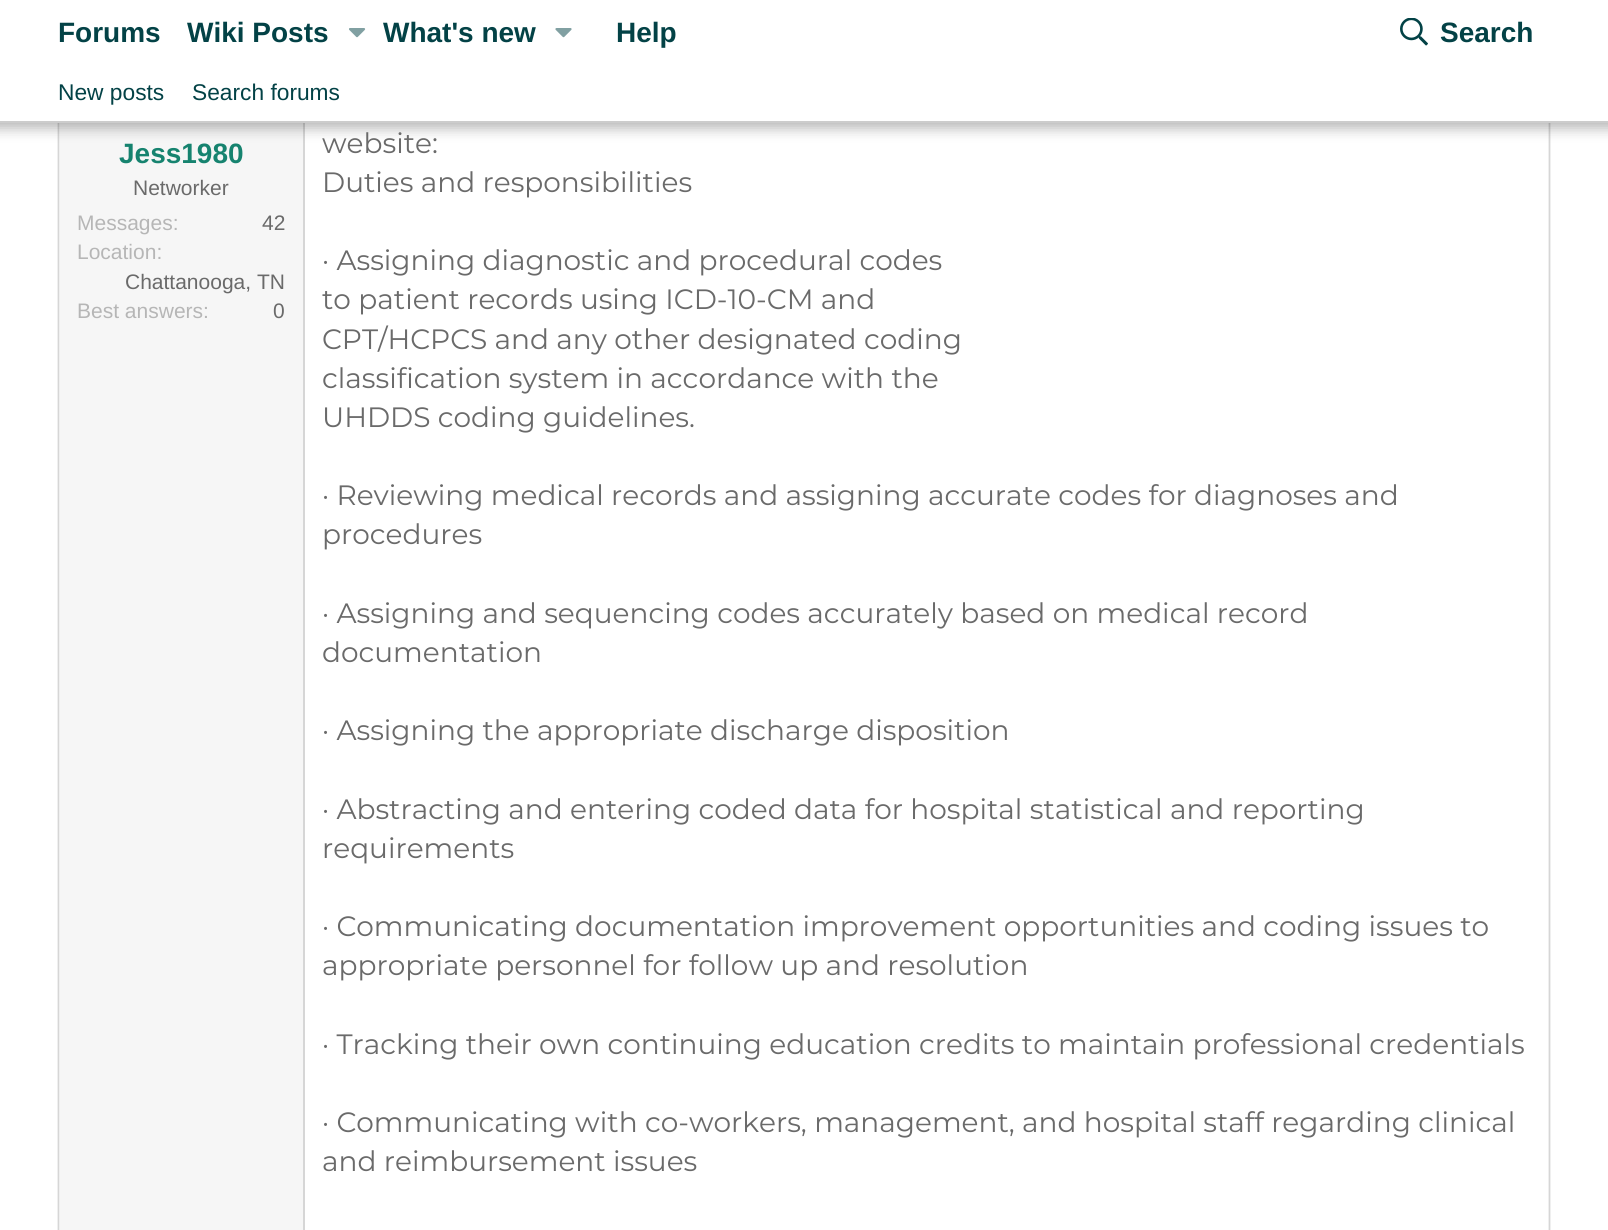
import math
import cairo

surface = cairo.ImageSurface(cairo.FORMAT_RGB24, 1608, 1230)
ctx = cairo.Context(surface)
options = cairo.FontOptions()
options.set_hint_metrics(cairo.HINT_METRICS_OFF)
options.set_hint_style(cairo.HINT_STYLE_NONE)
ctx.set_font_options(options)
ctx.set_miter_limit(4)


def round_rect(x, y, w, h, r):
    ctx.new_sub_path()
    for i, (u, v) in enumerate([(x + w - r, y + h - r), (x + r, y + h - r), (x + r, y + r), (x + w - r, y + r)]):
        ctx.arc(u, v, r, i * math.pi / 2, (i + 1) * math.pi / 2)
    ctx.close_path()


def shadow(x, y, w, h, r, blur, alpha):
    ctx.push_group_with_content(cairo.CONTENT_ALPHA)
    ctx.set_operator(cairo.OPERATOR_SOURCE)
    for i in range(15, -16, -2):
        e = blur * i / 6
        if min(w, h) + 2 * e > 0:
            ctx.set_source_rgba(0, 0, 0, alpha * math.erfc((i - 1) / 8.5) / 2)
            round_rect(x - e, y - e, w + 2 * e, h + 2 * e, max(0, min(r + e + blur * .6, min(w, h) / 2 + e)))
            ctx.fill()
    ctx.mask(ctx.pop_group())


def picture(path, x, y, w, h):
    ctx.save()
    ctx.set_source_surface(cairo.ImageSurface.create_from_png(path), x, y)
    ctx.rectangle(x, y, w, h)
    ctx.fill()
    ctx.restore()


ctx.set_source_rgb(1, 1, 1)
ctx.paint()
ctx.new_path()
ctx.move_to(1542, -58)
ctx.curve_to(1547, -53.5, 1549.5, -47, 1549.5, -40.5)
ctx.line_to(1549.5, 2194.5)
ctx.curve_to(1549.5, 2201, 1547, 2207.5, 1542, 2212.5)
ctx.set_source_rgb(0.839, 0.839, 0.839)
ctx.set_line_width(1.8)
ctx.stroke()
ctx.new_path()
ctx.move_to(66, 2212.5)
ctx.curve_to(61.5, 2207.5, 58.5, 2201, 58.5, 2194.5)
ctx.line_to(58.5, -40)
ctx.curve_to(58.5, -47, 61.5, -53.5, 66, -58)
ctx.stroke()
ctx.set_source_rgb(0.961, 0.961, 0.961)
ctx.rectangle(60, 123, 243, 1107)
ctx.fill()
ctx.set_source_rgb(0.839, 0.839, 0.839)
ctx.rectangle(303, 123, 2, 1107)
ctx.fill()
ctx.set_source_rgb(0, 0, 0)
shadow(-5, -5, 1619, 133, 0, 7, 0.3)
ctx.set_source_rgb(1, 1, 1)
ctx.rectangle(0, 0, 1608, 121)
ctx.fill()
ctx.select_font_face("Liberation Sans", cairo.FONT_SLANT_NORMAL, cairo.FONT_WEIGHT_BOLD)
ctx.set_font_size(28)
ctx.set_source_rgb(0.012, 0.259, 0.275)
ctx.move_to(58, 42)
ctx.show_text("Forums")
ctx.move_to(187, 42)
ctx.show_text("Wiki Posts")
picture("img1.png", 349, 28, 17, 10)
ctx.move_to(383, 42)
ctx.show_text("What's new")
picture("img2.png", 555, 28, 17, 10)
ctx.move_to(616, 42)
ctx.show_text("Help")
picture("img3.png", 1400, 18, 28, 28)
ctx.move_to(1440, 42)
ctx.show_text("Search")
ctx.set_source_rgb(0.8, 0.8, 0.8)
ctx.rectangle(0, 121, 1608, 2)
ctx.fill()
ctx.select_font_face("Liberation Sans")
ctx.set_font_size(22.75)
ctx.set_source_rgb(0.012, 0.259, 0.275)
ctx.move_to(58, 100)
ctx.show_text("New posts")
ctx.move_to(192, 100)
ctx.show_text("Search forums")
ctx.select_font_face("Liberation Sans", cairo.FONT_SLANT_NORMAL, cairo.FONT_WEIGHT_BOLD)
ctx.set_font_size(28)
ctx.set_source_rgb(0.086, 0.514, 0.435)
ctx.move_to(119, 163)
ctx.show_text("Jess1980")
ctx.select_font_face("Liberation Sans")
ctx.set_font_size(21)
ctx.set_source_rgb(0.416, 0.416, 0.416)
ctx.move_to(133, 195)
ctx.show_text("Networker")
ctx.set_source_rgb(0.714, 0.714, 0.714)
ctx.move_to(77, 230)
ctx.show_text("Messages:")
ctx.set_source_rgb(0.416, 0.416, 0.416)
ctx.move_to(262, 230)
ctx.show_text("42")
ctx.set_source_rgb(0.714, 0.714, 0.714)
ctx.move_to(77, 259)
ctx.show_text("Location:")
ctx.set_source_rgb(0.416, 0.416, 0.416)
ctx.move_to(125, 289)
ctx.show_text("Chattanooga, TN")
ctx.set_source_rgb(0.714, 0.714, 0.714)
ctx.move_to(77, 318)
ctx.show_text("Best answers:")
ctx.set_source_rgb(0.416, 0.416, 0.416)
ctx.move_to(273, 318)
ctx.show_text("0")
ctx.select_font_face("Montserrat")
ctx.set_font_size(28)
ctx.move_to(322, 153)
ctx.show_text("website:")
ctx.move_to(322, 192)
ctx.show_text("Duties and responsibilities")
ctx.move_to(322, 270)
ctx.show_text("· Assigning diagnostic and procedural codes")
ctx.move_to(322, 309)
ctx.show_text("to patient records using ICD-10-CM and")
ctx.move_to(322, 349)
ctx.show_text("CPT/HCPCS and any other designated coding")
ctx.move_to(322, 388)
ctx.show_text("classification system in accordance with the")
ctx.move_to(322, 427)
ctx.show_text("UHDDS coding guidelines.")
ctx.move_to(322, 505)
ctx.show_text("· Reviewing medical records and assigning accurate codes for diagnoses and")
ctx.move_to(322, 544)
ctx.show_text("procedures")
ctx.move_to(322, 623)
ctx.show_text("· Assigning and sequencing codes accurately based on medical record")
ctx.move_to(322, 662)
ctx.show_text("documentation")
ctx.move_to(322, 740)
ctx.show_text("· Assigning the appropriate discharge disposition")
ctx.move_to(322, 819)
ctx.show_text("· Abstracting and entering coded data for hospital statistical and reporting")
ctx.move_to(322, 858)
ctx.show_text("requirements")
ctx.move_to(322, 936)
ctx.show_text("· Communicating documentation improvement opportunities and coding issues to")
ctx.move_to(322, 975)
ctx.show_text("appropriate personnel for follow up and resolution")
ctx.move_to(322, 1054)
ctx.show_text("· Tracking their own continuing education credits to maintain professional credentials")
ctx.move_to(322, 1132)
ctx.show_text("· Communicating with co-workers, management, and hospital staff regarding clinical")
ctx.move_to(322, 1171)
ctx.show_text("and reimbursement issues")
surface.write_to_png("page.png")
